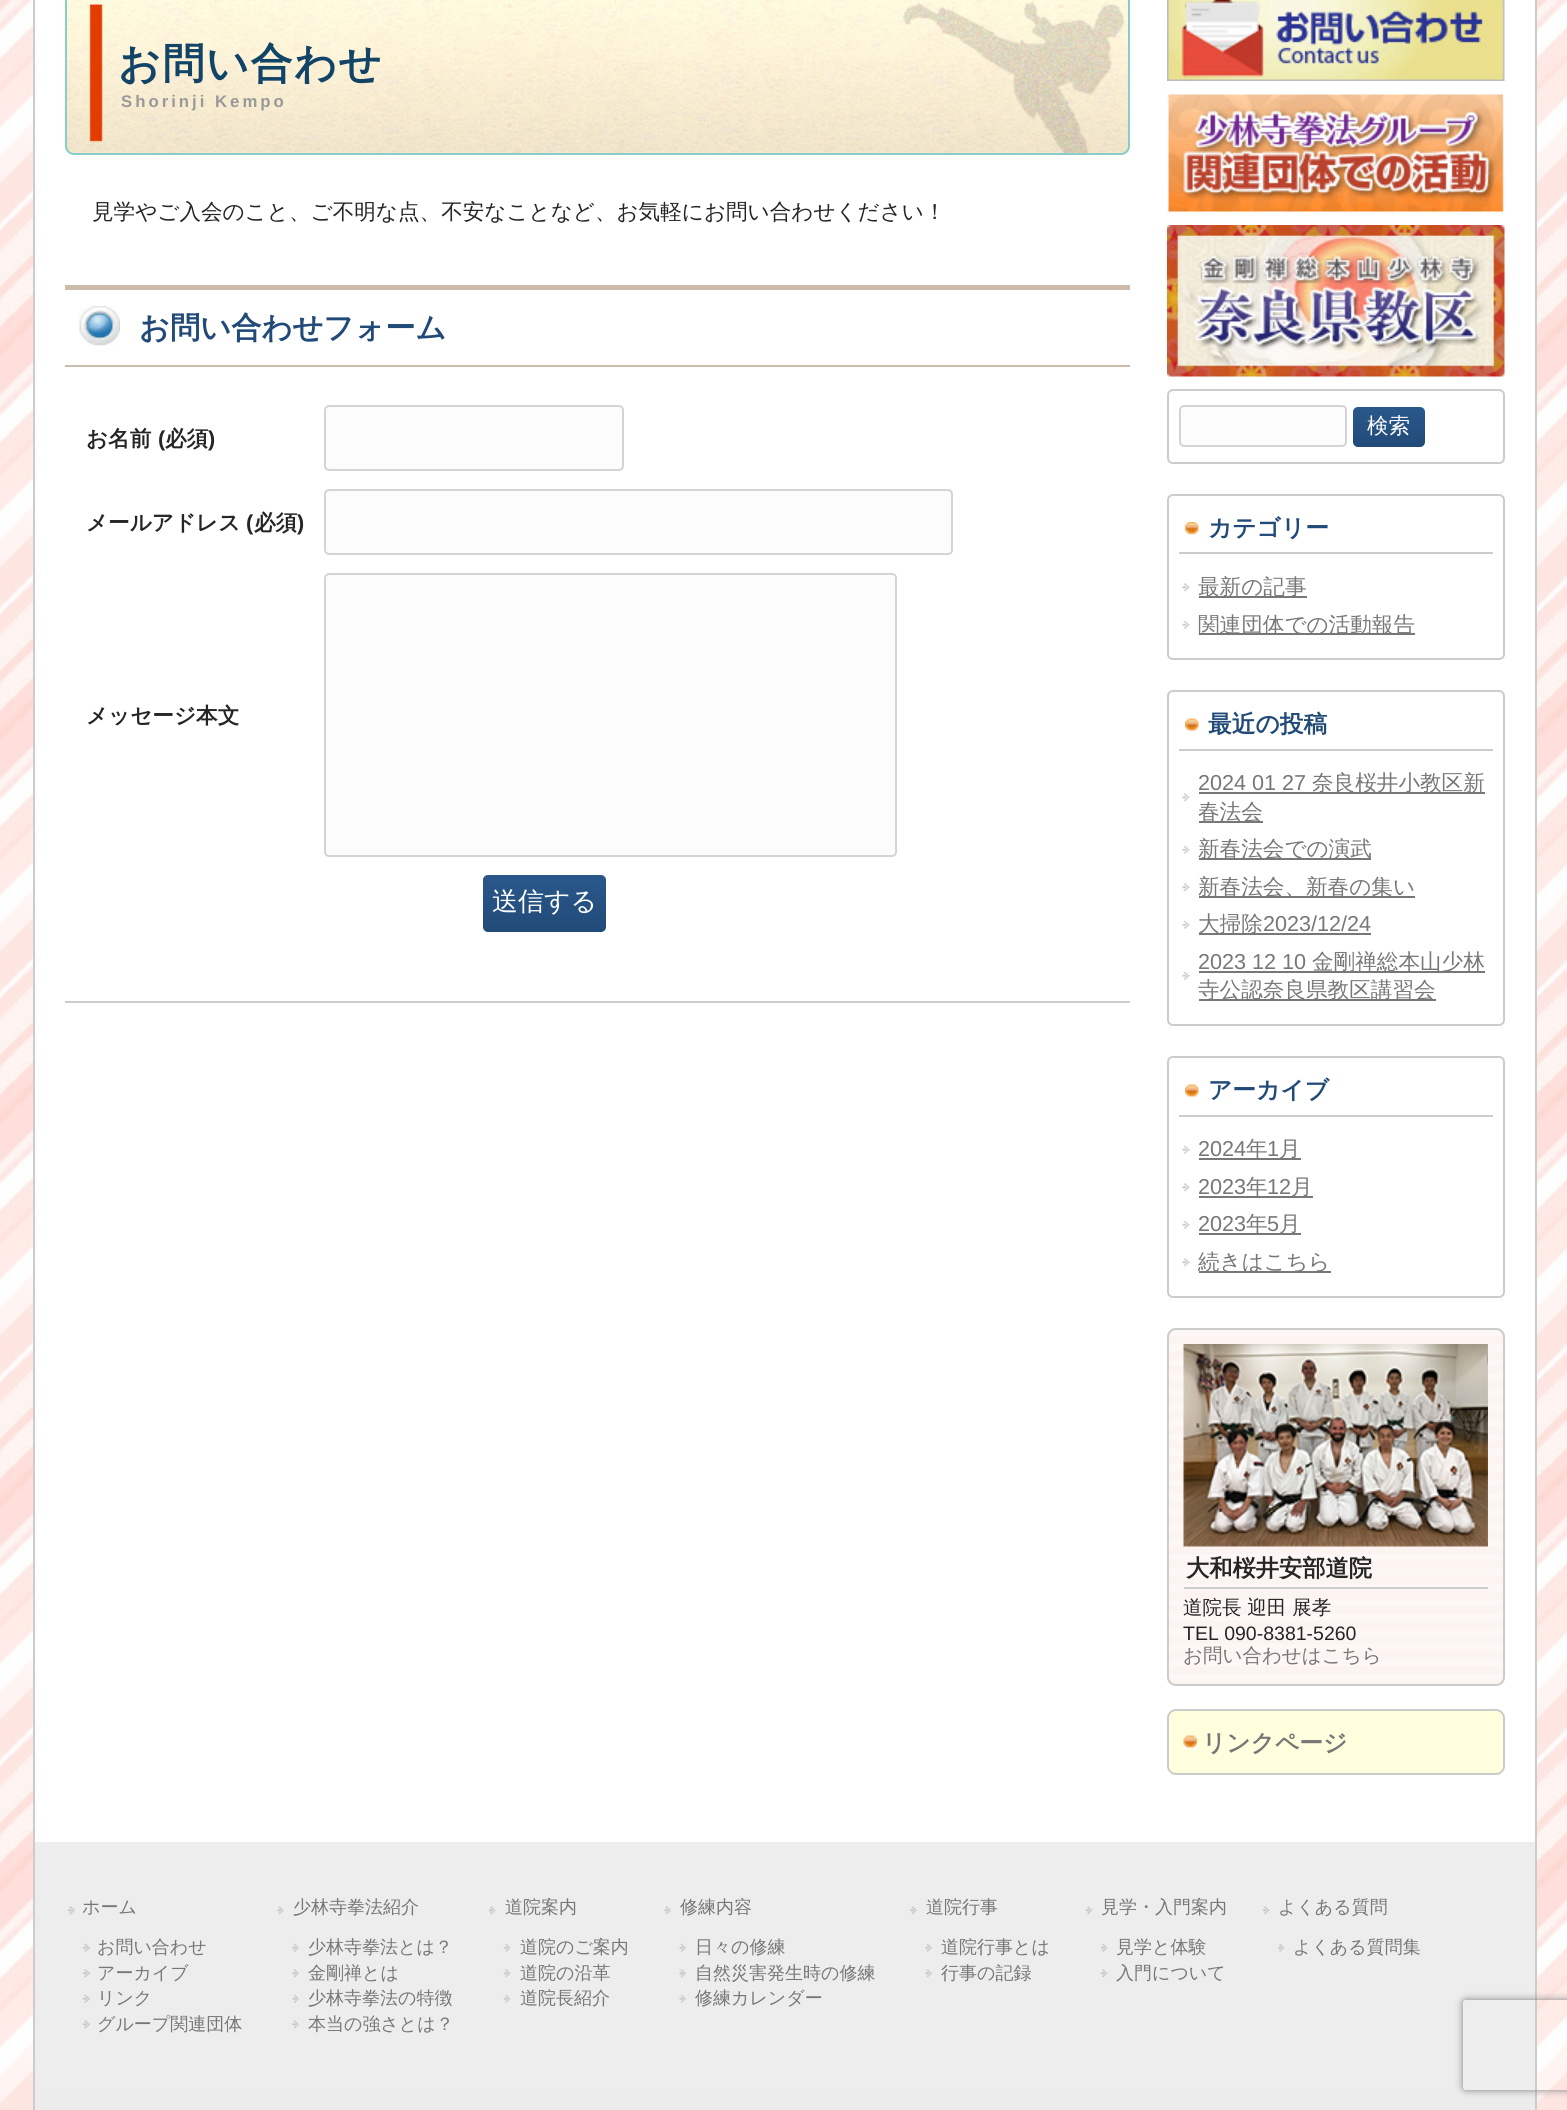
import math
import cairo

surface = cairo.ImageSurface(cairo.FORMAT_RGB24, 1567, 2110)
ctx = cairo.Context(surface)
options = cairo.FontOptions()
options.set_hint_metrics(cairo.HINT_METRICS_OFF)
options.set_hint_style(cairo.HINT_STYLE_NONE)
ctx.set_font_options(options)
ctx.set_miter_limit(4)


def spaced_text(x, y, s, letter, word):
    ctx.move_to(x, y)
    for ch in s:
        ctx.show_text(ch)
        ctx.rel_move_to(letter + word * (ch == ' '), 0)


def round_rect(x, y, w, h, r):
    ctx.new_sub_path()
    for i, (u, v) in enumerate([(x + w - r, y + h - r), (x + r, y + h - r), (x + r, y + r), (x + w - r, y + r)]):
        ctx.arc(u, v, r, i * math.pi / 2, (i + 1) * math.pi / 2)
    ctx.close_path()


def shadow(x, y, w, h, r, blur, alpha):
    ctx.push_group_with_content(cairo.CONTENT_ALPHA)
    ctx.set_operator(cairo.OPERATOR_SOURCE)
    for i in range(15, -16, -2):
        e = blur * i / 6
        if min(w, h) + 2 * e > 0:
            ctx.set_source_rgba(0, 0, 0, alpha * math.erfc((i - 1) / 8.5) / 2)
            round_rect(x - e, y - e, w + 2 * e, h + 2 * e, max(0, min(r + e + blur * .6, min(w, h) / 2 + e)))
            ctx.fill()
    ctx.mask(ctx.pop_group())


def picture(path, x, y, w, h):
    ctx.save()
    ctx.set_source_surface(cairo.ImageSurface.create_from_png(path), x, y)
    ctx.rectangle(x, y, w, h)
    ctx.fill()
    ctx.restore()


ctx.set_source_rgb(1, 1, 1)
ctx.paint()
picture("img1.png", 0, 0, 1567, 2110)
ctx.set_source_rgb(1, 1, 1)
ctx.rectangle(35, 0, 1500, 1842)
ctx.fill()
ctx.set_source_rgb(0.8, 0.8, 0.8)
ctx.rectangle(1535, 0, 2, 2110)
ctx.fill()
ctx.rectangle(33, 0, 2, 2110)
ctx.fill()
picture("img2.png", 64, 0, 1066, 155)
round_rect(66, -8, 1063, 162, 8)
ctx.set_source_rgb(0.533, 0.8, 0.8)
ctx.stroke()
ctx.select_font_face("WenQuanYi Zen Hei", cairo.FONT_SLANT_NORMAL, cairo.FONT_WEIGHT_BOLD)
ctx.set_font_size(42)
ctx.set_source_rgb(0.067, 0.267, 0.4)
spaced_text(118, 78, "お問い合わせ", 1.5, 0)
ctx.select_font_face("Liberation Sans", cairo.FONT_SLANT_NORMAL, cairo.FONT_WEIGHT_BOLD)
ctx.set_font_size(16.75)
ctx.set_source_rgb(0.6, 0.6, 0.6)
spaced_text(121, 107, "Shorinji Kempo", 3, 0)
ctx.set_source_rgb(0.8, 0.8, 0.8)
ctx.rectangle(65, 1001, 1065, 2)
ctx.fill()
ctx.select_font_face("WenQuanYi Zen Hei Medium")
ctx.set_font_size(21.6)
ctx.set_source_rgb(0.145, 0.145, 0.145)
ctx.move_to(92, 219)
ctx.show_text("見学やご入会のこと、ご不明な点、不安なことなど、お気軽にお問い合わせください！")
picture("img3.png", 79, 306, 41, 40)
ctx.set_source_rgb(0.8, 0.733, 0.667)
ctx.rectangle(65, 285, 1065, 5)
ctx.fill()
ctx.rectangle(65, 365, 1065, 2)
ctx.fill()
ctx.select_font_face("WenQuanYi Zen Hei", cairo.FONT_SLANT_NORMAL, cairo.FONT_WEIGHT_BOLD)
ctx.set_font_size(30.25)
ctx.set_source_rgb(0.129, 0.29, 0.471)
ctx.move_to(139, 338)
ctx.show_text("お問い合わせフォーム")
ctx.set_font_size(21.6)
ctx.set_source_rgb(0.145, 0.145, 0.145)
ctx.move_to(86, 446)
ctx.show_text("お名前")
ctx.select_font_face("Liberation Sans", cairo.FONT_SLANT_NORMAL, cairo.FONT_WEIGHT_BOLD)
ctx.move_to(158, 446)
ctx.show_text("(")
ctx.select_font_face("WenQuanYi Zen Hei", cairo.FONT_SLANT_NORMAL, cairo.FONT_WEIGHT_BOLD)
ctx.move_to(165, 446)
ctx.show_text("必須")
ctx.select_font_face("Liberation Sans", cairo.FONT_SLANT_NORMAL, cairo.FONT_WEIGHT_BOLD)
ctx.move_to(208, 446)
ctx.show_text(")")
ctx.set_source_rgb(0.988, 0.988, 0.988)
round_rect(325, 406, 298, 64, 4)
ctx.fill_preserve()
ctx.set_source_rgb(0.831, 0.831, 0.843)
ctx.stroke()
ctx.select_font_face("WenQuanYi Zen Hei", cairo.FONT_SLANT_NORMAL, cairo.FONT_WEIGHT_BOLD)
ctx.set_source_rgb(0.145, 0.145, 0.145)
ctx.move_to(86, 530)
ctx.show_text("メールアドレス")
ctx.select_font_face("Liberation Sans", cairo.FONT_SLANT_NORMAL, cairo.FONT_WEIGHT_BOLD)
ctx.move_to(246, 530)
ctx.show_text("(")
ctx.select_font_face("WenQuanYi Zen Hei", cairo.FONT_SLANT_NORMAL, cairo.FONT_WEIGHT_BOLD)
ctx.move_to(254, 530)
ctx.show_text("必須")
ctx.select_font_face("Liberation Sans", cairo.FONT_SLANT_NORMAL, cairo.FONT_WEIGHT_BOLD)
ctx.move_to(297, 530)
ctx.show_text(")")
ctx.set_source_rgb(0.988, 0.988, 0.988)
round_rect(325, 490, 627, 64, 4)
ctx.fill_preserve()
ctx.set_source_rgb(0.831, 0.831, 0.843)
ctx.stroke()
ctx.select_font_face("WenQuanYi Zen Hei", cairo.FONT_SLANT_NORMAL, cairo.FONT_WEIGHT_BOLD)
ctx.set_source_rgb(0.145, 0.145, 0.145)
ctx.move_to(86, 723)
ctx.show_text("メッセージ本文")
ctx.set_source_rgb(0.988, 0.988, 0.988)
round_rect(325, 574, 571, 282, 4)
ctx.fill_preserve()
ctx.set_source_rgb(0.831, 0.831, 0.843)
ctx.stroke()
gradient = cairo.LinearGradient(545, 875, 545, 932)
gradient.add_color_stop_rgba(0, 0.165, 0.345, 0.545, 1)
gradient.add_color_stop_rgba(1, 0.129, 0.29, 0.471, 1)
ctx.set_source(gradient)
round_rect(483, 875, 123, 57, 5)
ctx.fill()
ctx.select_font_face("WenQuanYi Zen Hei Medium")
ctx.set_font_size(26)
ctx.set_source_rgb(1, 1, 1)
ctx.move_to(492, 910)
ctx.show_text("送信する")
picture("img4.png", 1167, 0, 338, 81)
picture("img5.png", 1167, 93, 337, 120)
picture("img6.png", 1167, 225, 338, 152)
round_rect(1168, 390, 336, 73, 5)
ctx.set_source_rgb(0.8, 0.8, 0.8)
ctx.stroke()
ctx.set_source_rgb(0.988, 0.988, 0.988)
round_rect(1180, 406, 166, 40, 4)
ctx.fill_preserve()
ctx.set_source_rgb(0.831, 0.831, 0.843)
ctx.stroke()
gradient = cairo.LinearGradient(1389, 407, 1389, 447)
gradient.add_color_stop_rgba(0, 0.165, 0.345, 0.545, 1)
gradient.add_color_stop_rgba(1, 0.129, 0.29, 0.471, 1)
ctx.set_source(gradient)
round_rect(1353, 407, 72, 40, 5)
ctx.fill()
ctx.set_font_size(21.6)
ctx.set_source_rgb(1, 1, 1)
ctx.move_to(1367, 433)
ctx.show_text("検索")
round_rect(1168, 495, 336, 164, 5)
ctx.set_source_rgb(0.8, 0.8, 0.8)
ctx.stroke()
picture("img7.png", 1185, 522, 14, 13)
ctx.rectangle(1179, 552, 314, 2)
ctx.fill()
ctx.select_font_face("WenQuanYi Zen Hei", cairo.FONT_SLANT_NORMAL, cairo.FONT_WEIGHT_BOLD)
ctx.set_font_size(23.75)
ctx.set_source_rgb(0.129, 0.29, 0.471)
ctx.move_to(1208, 536)
ctx.show_text("カテゴリー")
picture("img8.png", 1182, 583, 8, 9)
ctx.set_source_rgb(0.467, 0.467, 0.467)
ctx.rectangle(1199, 596, 108, 2)
ctx.fill()
ctx.select_font_face("WenQuanYi Zen Hei Medium")
ctx.set_font_size(21.6)
ctx.move_to(1198, 594)
ctx.show_text("最新の記事")
picture("img9.png", 1182, 620, 8, 9)
ctx.rectangle(1199, 633, 216, 2)
ctx.fill()
ctx.move_to(1198, 632)
ctx.show_text("関連団体での活動報告")
round_rect(1168, 691, 336, 334, 5)
ctx.set_source_rgb(0.8, 0.8, 0.8)
ctx.stroke()
picture("img10.png", 1185, 718, 14, 13)
ctx.rectangle(1179, 749, 314, 2)
ctx.fill()
ctx.select_font_face("WenQuanYi Zen Hei", cairo.FONT_SLANT_NORMAL, cairo.FONT_WEIGHT_BOLD)
ctx.set_font_size(23.75)
ctx.set_source_rgb(0.129, 0.29, 0.471)
ctx.move_to(1208, 732)
ctx.show_text("最近の投稿")
picture("img8.png", 1182, 793, 8, 9)
ctx.select_font_face("Liberation Sans")
ctx.set_font_size(21.6)
ctx.set_source_rgb(0.467, 0.467, 0.467)
ctx.move_to(1198, 790)
ctx.show_text("2024 01 27")
ctx.rectangle(1199, 792, 286, 2)
ctx.fill()
ctx.select_font_face("WenQuanYi Zen Hei Medium")
ctx.move_to(1312, 790)
ctx.show_text("奈良桜井小教区新")
ctx.rectangle(1199, 821, 64, 2)
ctx.fill()
ctx.move_to(1198, 819)
ctx.show_text("春法会")
picture("img9.png", 1182, 845, 8, 9)
ctx.rectangle(1199, 858, 172, 2)
ctx.fill()
ctx.move_to(1198, 856)
ctx.show_text("新春法会での演武")
picture("img8.png", 1182, 883, 8, 9)
ctx.rectangle(1199, 896, 216, 2)
ctx.fill()
ctx.move_to(1198, 894)
ctx.show_text("新春法会、新春の集い")
picture("img9.png", 1182, 920, 8, 9)
ctx.rectangle(1199, 933, 172, 2)
ctx.fill()
ctx.move_to(1198, 931)
ctx.show_text("大掃除")
ctx.select_font_face("Liberation Sans")
ctx.move_to(1263, 931)
ctx.show_text("2023/12/24")
picture("img9.png", 1182, 971, 8, 9)
ctx.move_to(1198, 969)
ctx.show_text("2023 12 10")
ctx.rectangle(1199, 971, 286, 2)
ctx.fill()
ctx.select_font_face("WenQuanYi Zen Hei Medium")
ctx.move_to(1312, 969)
ctx.show_text("金剛禅総本山少林")
ctx.rectangle(1199, 999, 237, 2)
ctx.fill()
ctx.move_to(1198, 997)
ctx.show_text("寺公認奈良県教区講習会")
round_rect(1168, 1057, 336, 240, 5)
ctx.set_source_rgb(0.8, 0.8, 0.8)
ctx.stroke()
picture("img10.png", 1185, 1084, 14, 13)
ctx.rectangle(1179, 1115, 314, 2)
ctx.fill()
ctx.select_font_face("WenQuanYi Zen Hei", cairo.FONT_SLANT_NORMAL, cairo.FONT_WEIGHT_BOLD)
ctx.set_font_size(23.75)
ctx.set_source_rgb(0.129, 0.29, 0.471)
ctx.move_to(1208, 1098)
ctx.show_text("アーカイブ")
picture("img9.png", 1182, 1145, 8, 9)
ctx.select_font_face("Liberation Sans")
ctx.set_font_size(21.6)
ctx.set_source_rgb(0.467, 0.467, 0.467)
ctx.move_to(1198, 1156)
ctx.show_text("2024")
ctx.rectangle(1199, 1158, 102, 2)
ctx.fill()
ctx.select_font_face("WenQuanYi Zen Hei Medium")
ctx.move_to(1246, 1156)
ctx.show_text("年")
ctx.select_font_face("Liberation Sans")
ctx.move_to(1267, 1156)
ctx.show_text("1")
ctx.select_font_face("WenQuanYi Zen Hei Medium")
ctx.move_to(1279, 1156)
ctx.show_text("月")
picture("img8.png", 1182, 1183, 8, 9)
ctx.select_font_face("Liberation Sans")
ctx.move_to(1198, 1194)
ctx.show_text("2023")
ctx.rectangle(1199, 1196, 114, 2)
ctx.fill()
ctx.select_font_face("WenQuanYi Zen Hei Medium")
ctx.move_to(1246, 1194)
ctx.show_text("年")
ctx.select_font_face("Liberation Sans")
ctx.move_to(1267, 1194)
ctx.show_text("12")
ctx.select_font_face("WenQuanYi Zen Hei Medium")
ctx.move_to(1291, 1194)
ctx.show_text("月")
picture("img9.png", 1182, 1220, 8, 9)
ctx.select_font_face("Liberation Sans")
ctx.move_to(1198, 1231)
ctx.show_text("2023")
ctx.rectangle(1199, 1233, 102, 2)
ctx.fill()
ctx.select_font_face("WenQuanYi Zen Hei Medium")
ctx.move_to(1246, 1231)
ctx.show_text("年")
ctx.select_font_face("Liberation Sans")
ctx.move_to(1267, 1231)
ctx.show_text("5")
ctx.select_font_face("WenQuanYi Zen Hei Medium")
ctx.move_to(1279, 1231)
ctx.show_text("月")
picture("img8.png", 1182, 1258, 8, 9)
ctx.rectangle(1199, 1271, 132, 2)
ctx.fill()
ctx.move_to(1198, 1269)
ctx.show_text("続きはこちら")
ctx.set_source_rgb(0.988, 0.957, 0.941)
round_rect(1167, 1328, 338, 358, 9)
ctx.fill()
picture("img11.png", 1167, 1329, 338, 352)
round_rect(1168, 1329, 336, 356, 8)
ctx.set_source_rgb(0.8, 0.8, 0.8)
ctx.stroke()
picture("img12.png", 1183, 1344, 305, 203)
ctx.rectangle(1184, 1587, 304, 2)
ctx.fill()
ctx.select_font_face("WenQuanYi Zen Hei", cairo.FONT_SLANT_NORMAL, cairo.FONT_WEIGHT_BOLD)
ctx.set_font_size(23.25)
ctx.set_source_rgb(0.145, 0.145, 0.145)
ctx.move_to(1186, 1576)
ctx.show_text("大和桜井安部道院")
ctx.select_font_face("WenQuanYi Zen Hei Medium")
ctx.set_font_size(19.5)
ctx.move_to(1183, 1614)
ctx.show_text("道院長 迎田 展孝")
ctx.select_font_face("Liberation Sans")
ctx.move_to(1183, 1640)
ctx.show_text("TEL 090-8381-5260")
ctx.select_font_face("WenQuanYi Zen Hei Medium")
ctx.set_source_rgb(0.467, 0.467, 0.467)
ctx.move_to(1183, 1662)
ctx.show_text("お問い合わせはこちら")
ctx.set_source_rgb(1, 1, 0.867)
round_rect(1167, 1709, 338, 66, 9)
ctx.fill()
picture("img13.png", 1183, 1735, 14, 14)
round_rect(1168, 1710, 336, 64, 8)
ctx.set_source_rgb(0.8, 0.8, 0.8)
ctx.stroke()
ctx.select_font_face("WenQuanYi Zen Hei", cairo.FONT_SLANT_NORMAL, cairo.FONT_WEIGHT_BOLD)
ctx.set_font_size(23.75)
ctx.set_source_rgb(0.467, 0.467, 0.467)
ctx.move_to(1202, 1751)
ctx.show_text("リンクページ")
ctx.set_source_rgb(0.929, 0.929, 0.929)
ctx.rectangle(35, 1842, 1500, 248)
ctx.fill()
picture("img14.png", 67, 1906, 9, 9)
ctx.select_font_face("WenQuanYi Zen Hei Medium")
ctx.set_font_size(18)
ctx.set_source_rgb(0.467, 0.467, 0.467)
ctx.move_to(82, 1913)
ctx.show_text("ホーム")
picture("img15.png", 82, 1943, 9, 9)
ctx.move_to(97, 1953)
ctx.show_text("お問い合わせ")
picture("img14.png", 82, 1969, 9, 9)
ctx.move_to(97, 1979)
ctx.show_text("アーカイブ")
picture("img15.png", 82, 1994, 9, 9)
ctx.move_to(97, 2004)
ctx.show_text("リンク")
picture("img14.png", 82, 2020, 9, 9)
ctx.move_to(97, 2030)
ctx.show_text("グループ関連団体")
picture("img16.png", 277, 1906, 7, 9)
ctx.move_to(293, 1913)
ctx.show_text("少林寺拳法紹介")
picture("img17.png", 292, 1943, 7, 9)
ctx.move_to(308, 1953)
ctx.show_text("少林寺拳法とは？")
picture("img18.png", 292, 1969, 7, 9)
ctx.move_to(308, 1979)
ctx.show_text("金剛禅とは")
picture("img17.png", 292, 1994, 7, 9)
ctx.move_to(308, 2004)
ctx.show_text("少林寺拳法の特徴")
picture("img18.png", 292, 2020, 7, 9)
ctx.move_to(308, 2030)
ctx.show_text("本当の強さとは？")
picture("img19.png", 488, 1906, 8, 9)
ctx.move_to(505, 1913)
ctx.show_text("道院案内")
picture("img20.png", 503, 1943, 8, 9)
ctx.move_to(520, 1953)
ctx.show_text("道院のご案内")
picture("img19.png", 503, 1969, 8, 9)
ctx.move_to(520, 1979)
ctx.show_text("道院の沿革")
picture("img20.png", 503, 1994, 8, 9)
ctx.move_to(520, 2004)
ctx.show_text("道院長紹介")
picture("img18.png", 664, 1906, 7, 9)
ctx.move_to(680, 1913)
ctx.show_text("修練内容")
picture("img17.png", 679, 1943, 7, 9)
ctx.move_to(695, 1953)
ctx.show_text("日々の修練")
picture("img18.png", 679, 1969, 7, 9)
ctx.move_to(695, 1979)
ctx.show_text("自然災害発生時の修練")
picture("img17.png", 679, 1994, 7, 9)
ctx.move_to(695, 2004)
ctx.show_text("修練カレンダー")
picture("img16.png", 910, 1906, 7, 9)
ctx.move_to(926, 1913)
ctx.show_text("道院行事")
picture("img21.png", 925, 1943, 7, 9)
ctx.move_to(941, 1953)
ctx.show_text("道院行事とは")
picture("img16.png", 925, 1969, 7, 9)
ctx.move_to(941, 1979)
ctx.show_text("行事の記録")
picture("img19.png", 1085, 1906, 8, 9)
ctx.move_to(1101, 1913)
ctx.show_text("見学・入門案内")
picture("img20.png", 1100, 1943, 8, 9)
ctx.move_to(1116, 1953)
ctx.show_text("見学と体験")
picture("img19.png", 1100, 1969, 8, 9)
ctx.move_to(1116, 1979)
ctx.show_text("入門について")
picture("img19.png", 1262, 1906, 8, 9)
ctx.move_to(1278, 1913)
ctx.show_text("よくある質問")
picture("img22.png", 1277, 1943, 8, 9)
ctx.move_to(1293, 1953)
ctx.show_text("よくある質問集")
ctx.set_source_rgb(0.922, 0.922, 0.922)
ctx.rectangle(35, 2090, 1500, 20)
ctx.fill()
ctx.save()
ctx.set_fill_rule(cairo.FILL_RULE_EVEN_ODD)
ctx.new_path()
ctx.move_to(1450, 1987)
ctx.line_to(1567, 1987)
ctx.line_to(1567, 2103)
ctx.line_to(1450, 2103)
ctx.close_path()
ctx.move_to(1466, 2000)
ctx.line_to(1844, 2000)
ctx.curve_to(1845.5, 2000, 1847, 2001.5, 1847, 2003)
ctx.line_to(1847, 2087)
ctx.curve_to(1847, 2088.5, 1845.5, 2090, 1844, 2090)
ctx.line_to(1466, 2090)
ctx.curve_to(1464.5, 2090, 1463, 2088.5, 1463, 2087)
ctx.line_to(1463, 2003)
ctx.curve_to(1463, 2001.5, 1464.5, 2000, 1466, 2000)
ctx.close_path()
ctx.clip()
ctx.set_source_rgb(0.502, 0.502, 0.502)
shadow(1463, 2000, 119, 90, 3, 4, 1)
ctx.restore()
surface.write_to_png("page.png")
